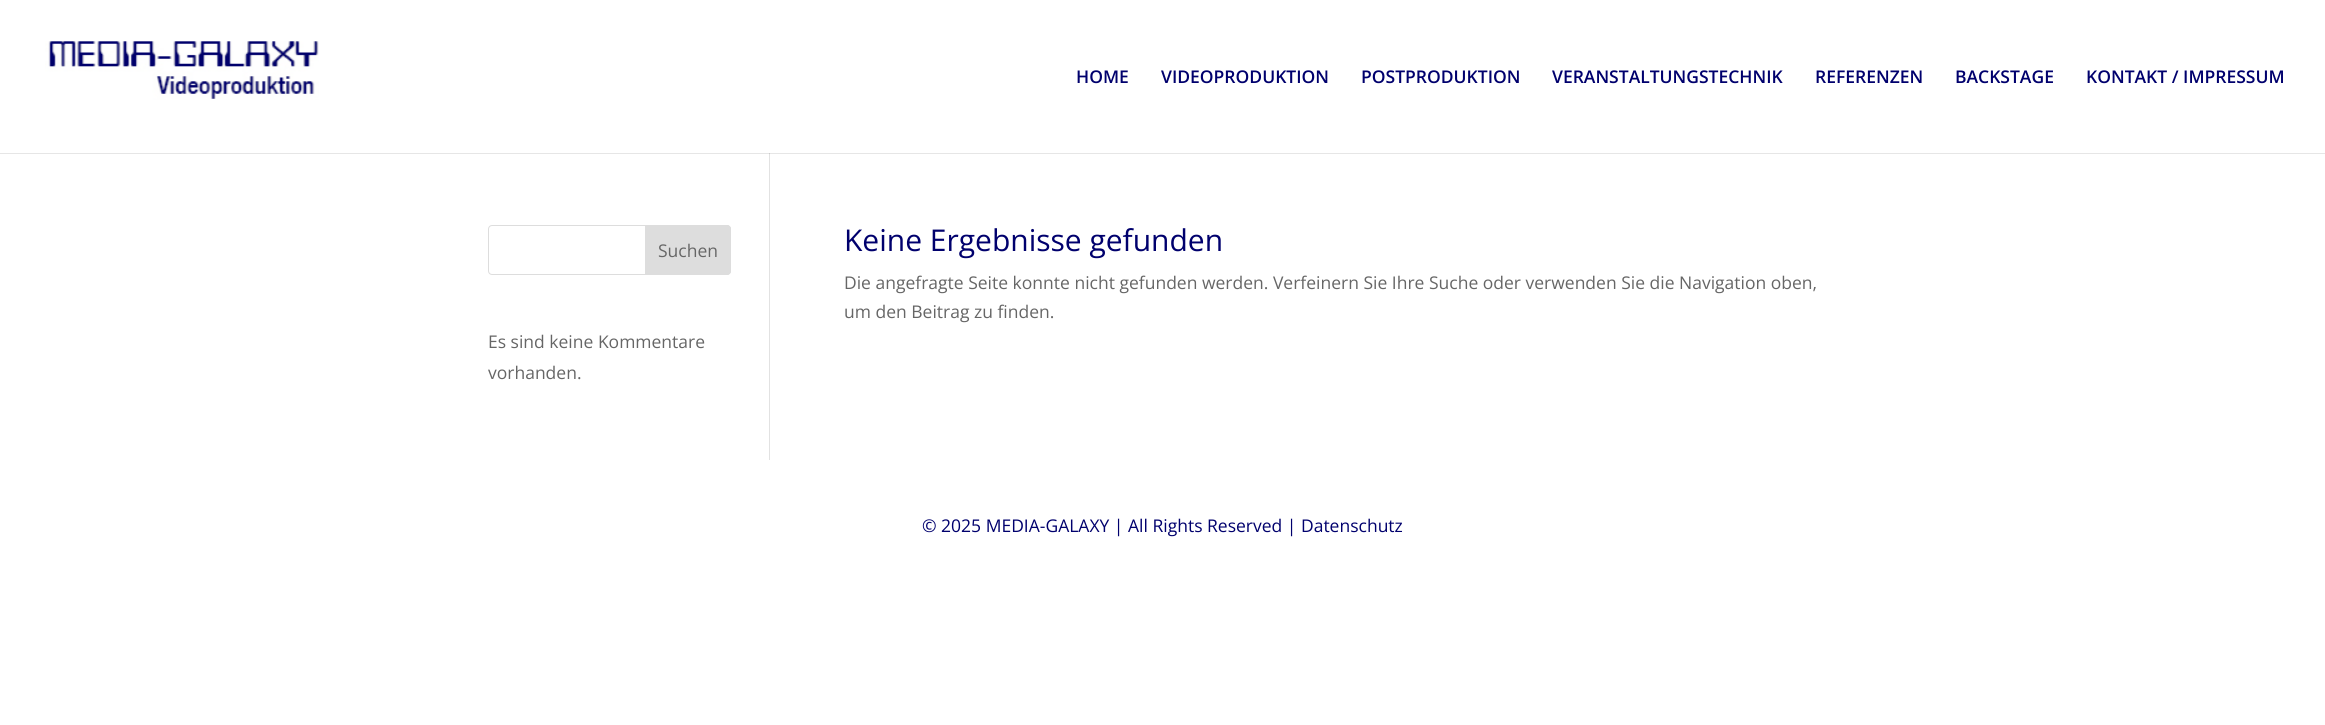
import math
import cairo

surface = cairo.ImageSurface(cairo.FORMAT_RGB24, 2325, 725)
ctx = cairo.Context(surface)
options = cairo.FontOptions()
options.set_hint_metrics(cairo.HINT_METRICS_OFF)
options.set_hint_style(cairo.HINT_STYLE_NONE)
ctx.set_font_options(options)
ctx.set_miter_limit(4)


def round_rect(x, y, w, h, r):
    ctx.new_sub_path()
    for i, (u, v) in enumerate([(x + w - r, y + h - r), (x + r, y + h - r), (x + r, y + r), (x + w - r, y + r)]):
        ctx.arc(u, v, r, i * math.pi / 2, (i + 1) * math.pi / 2)
    ctx.close_path()


def picture(path, x, y, w, h):
    ctx.save()
    ctx.set_source_surface(cairo.ImageSurface.create_from_png(path), x, y)
    ctx.rectangle(x, y, w, h)
    ctx.fill()
    ctx.restore()


ctx.set_source_rgb(1, 1, 1)
ctx.paint()
ctx.set_source_rgb(0.902, 0.902, 0.902)
ctx.rectangle(0, 153, 2325, 1)
ctx.fill()
picture("img1.png", 45, 41, 274, 59)
ctx.select_font_face("Open Sans SemiBold")
ctx.set_font_size(17.5)
ctx.set_source_rgb(0, 0, 0.427)
ctx.move_to(1076, 83)
ctx.show_text("HOME")
ctx.move_to(1161, 83)
ctx.show_text("VIDEOPRODUKTION")
ctx.move_to(1361, 83)
ctx.show_text("POSTPRODUKTION")
ctx.move_to(1552, 83)
ctx.show_text("VERANSTALTUNGSTECHNIK")
ctx.move_to(1815, 83)
ctx.show_text("REFERENZEN")
ctx.move_to(1955, 83)
ctx.show_text("BACKSTAGE")
ctx.move_to(2086, 83)
ctx.show_text("KONTAKT / IMPRESSUM")
ctx.set_source_rgb(0.886, 0.886, 0.886)
ctx.rectangle(769, 153, 1, 307)
ctx.fill()
ctx.set_source_rgb(0.796, 0.796, 0.796)
ctx.rectangle(769, 153, 1, 1)
ctx.fill()
round_rect(488.5, 225.5, 242, 49, 3.5)
ctx.set_source_rgb(0.867, 0.867, 0.867)
ctx.set_line_width(1)
ctx.stroke()
ctx.new_path()
ctx.move_to(645.5, 225.5)
ctx.line_to(727, 225.5)
ctx.curve_to(729, 225.5, 730.5, 227, 730.5, 229)
ctx.line_to(730.5, 271)
ctx.curve_to(730.5, 273, 729, 274.5, 727, 274.5)
ctx.line_to(645.5, 274.5)
ctx.close_path()
ctx.fill_preserve()
ctx.stroke()
ctx.select_font_face("Open Sans")
ctx.set_source_rgb(0.4, 0.4, 0.4)
ctx.move_to(658, 257)
ctx.show_text("Suchen")
ctx.move_to(488, 348)
ctx.show_text("Es sind keine Kommentare")
ctx.move_to(488, 379)
ctx.show_text("vorhanden.")
ctx.set_font_size(30)
ctx.set_source_rgb(0, 0, 0.427)
ctx.move_to(844, 251)
ctx.show_text("Keine Ergebnisse gefunden")
ctx.set_font_size(17.5)
ctx.set_source_rgb(0.4, 0.4, 0.4)
ctx.move_to(844, 289)
ctx.show_text("Die angefragte Seite konnte nicht gefunden werden. Verfeinern Sie Ihre Suche oder verwenden Sie die Navigation oben,")
ctx.move_to(844, 318)
ctx.show_text("um den Beitrag zu finden.")
ctx.set_source_rgb(0, 0, 0.427)
ctx.move_to(922, 532)
ctx.show_text("© 2025 MEDIA-GALAXY | All Rights Reserved | Datenschutz")
surface.write_to_png("page.png")
